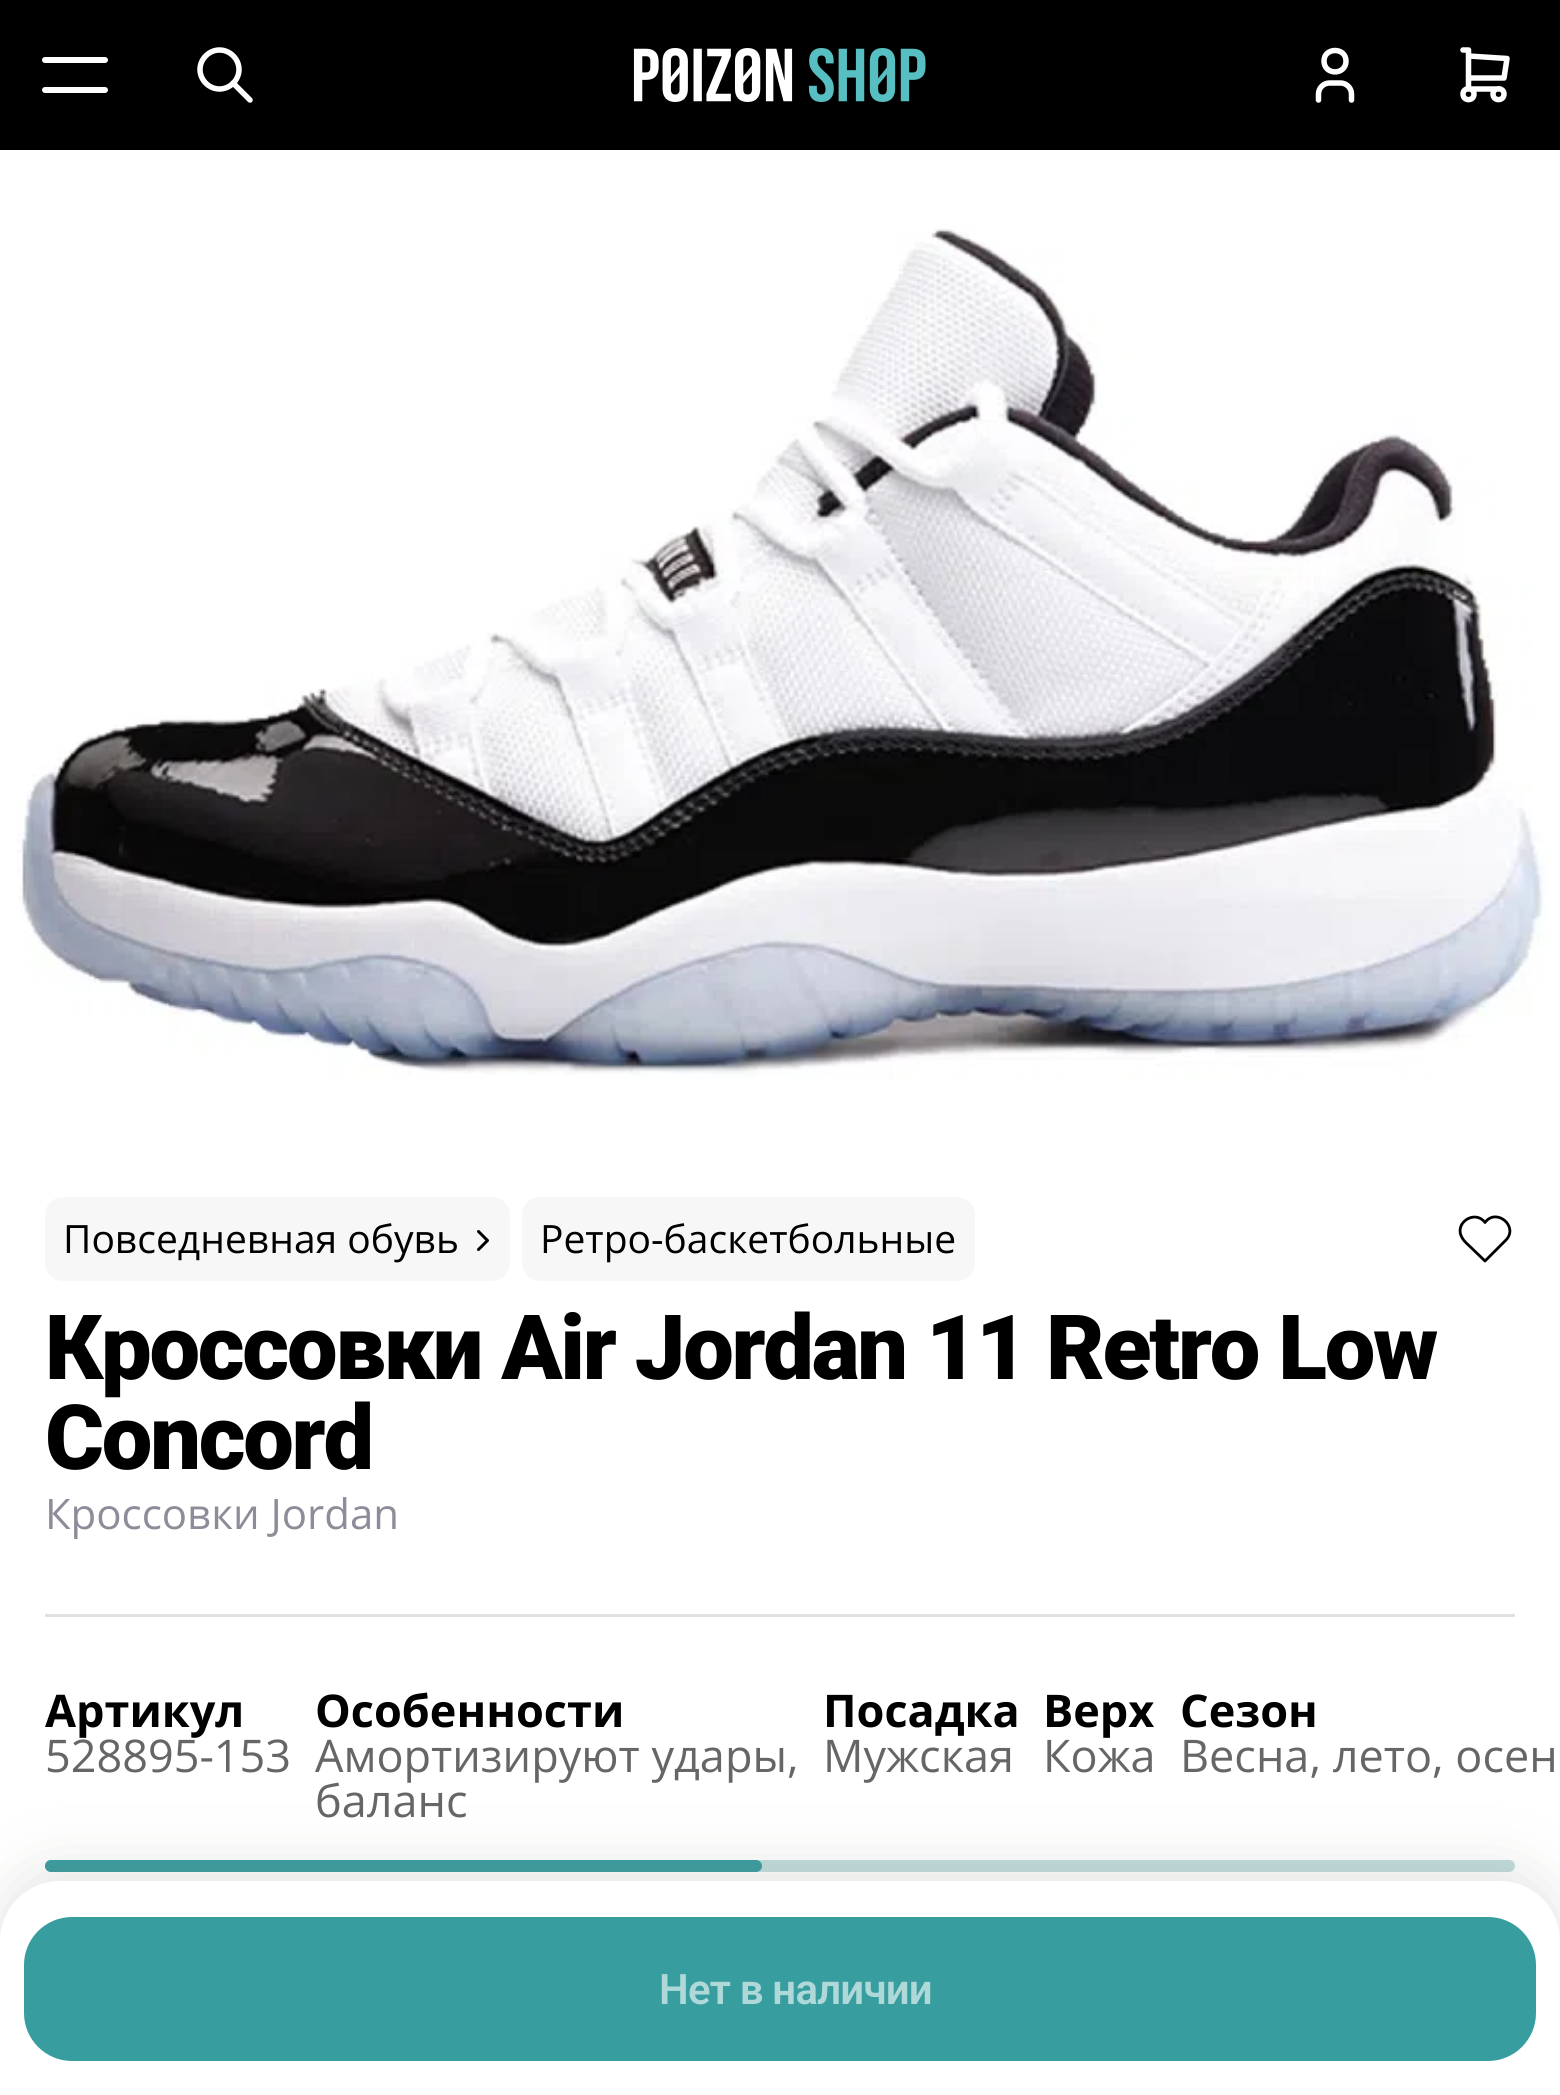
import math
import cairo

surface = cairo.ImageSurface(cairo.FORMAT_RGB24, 1560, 2095)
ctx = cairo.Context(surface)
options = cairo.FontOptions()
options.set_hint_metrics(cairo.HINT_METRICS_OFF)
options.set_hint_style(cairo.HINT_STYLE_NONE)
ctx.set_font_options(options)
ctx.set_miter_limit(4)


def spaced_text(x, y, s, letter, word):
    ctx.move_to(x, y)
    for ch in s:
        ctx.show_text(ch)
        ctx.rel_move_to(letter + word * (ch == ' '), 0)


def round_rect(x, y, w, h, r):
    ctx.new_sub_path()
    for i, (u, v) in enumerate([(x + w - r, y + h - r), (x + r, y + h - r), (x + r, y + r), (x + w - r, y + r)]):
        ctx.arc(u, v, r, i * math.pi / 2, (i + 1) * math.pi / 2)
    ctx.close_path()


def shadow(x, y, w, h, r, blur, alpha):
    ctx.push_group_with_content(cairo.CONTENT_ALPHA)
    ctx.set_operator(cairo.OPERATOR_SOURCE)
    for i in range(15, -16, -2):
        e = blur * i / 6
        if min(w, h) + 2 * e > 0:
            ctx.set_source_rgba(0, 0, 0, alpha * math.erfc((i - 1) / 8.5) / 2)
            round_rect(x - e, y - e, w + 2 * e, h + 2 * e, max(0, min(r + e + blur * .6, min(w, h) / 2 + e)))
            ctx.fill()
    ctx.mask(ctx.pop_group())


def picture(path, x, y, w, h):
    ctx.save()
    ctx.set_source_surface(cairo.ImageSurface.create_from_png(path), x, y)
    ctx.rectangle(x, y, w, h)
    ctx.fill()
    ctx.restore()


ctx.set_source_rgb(1, 1, 1)
ctx.paint()
ctx.set_source_rgb(0, 0, 0)
ctx.rectangle(0, 0, 1560, 150)
ctx.fill()
ctx.set_source_rgb(1, 1, 1)
round_rect(42, 57, 66, 6, 3)
ctx.fill()
round_rect(42, 87, 66, 6, 3)
ctx.fill()
ctx.new_path()
ctx.move_to(200, 69.5)
ctx.curve_to(200, 80, 209, 89, 219.5, 89)
ctx.curve_to(230, 89, 239, 80, 239, 69.5)
ctx.curve_to(239, 59, 230, 50, 219.5, 50)
ctx.curve_to(209, 50, 200, 59, 200, 69.5)
ctx.move_to(250, 100)
ctx.line_to(233, 83)
ctx.set_line_width(5.5)
ctx.set_line_cap(cairo.LINE_CAP_ROUND)
ctx.set_line_join(cairo.LINE_JOIN_ROUND)
ctx.stroke()
picture("img1.png", 633, 48, 293, 54)
ctx.new_path()
ctx.move_to(1324, 61)
ctx.curve_to(1324, 75.5, 1346, 75.5, 1346, 61)
ctx.curve_to(1346, 47, 1324, 47, 1324, 61)
ctx.move_to(1318.5, 100)
ctx.line_to(1318.5, 94)
ctx.curve_to(1318.5, 88, 1323.5, 83, 1329.5, 83)
ctx.line_to(1340.5, 83)
ctx.curve_to(1346.5, 83, 1351.5, 88, 1351.5, 94)
ctx.line_to(1351.5, 100)
ctx.stroke()
ctx.new_path()
ctx.move_to(1463, 94)
ctx.curve_to(1463, 101.5, 1474, 101.5, 1474, 94)
ctx.curve_to(1474, 87, 1463, 87, 1463, 94)
ctx.move_to(1493, 94)
ctx.curve_to(1493, 101.5, 1504, 101.5, 1504, 94)
ctx.curve_to(1504, 87, 1493, 87, 1493, 94)
ctx.move_to(1499, 89)
ctx.line_to(1468.5, 89)
ctx.line_to(1468.5, 50)
ctx.line_to(1463, 50)
ctx.move_to(1468.5, 56)
ctx.line_to(1507, 58.5)
ctx.line_to(1504, 78)
ctx.line_to(1468.5, 78)
ctx.stroke()
picture("img2.png", 17, 228, 1530, 851)
ctx.set_source_rgb(0.965, 0.965, 0.965)
round_rect(45, 1197, 465, 84, 18)
ctx.fill()
ctx.select_font_face("Open Sans")
ctx.set_font_size(39)
ctx.set_source_rgb(0, 0, 0)
ctx.move_to(63, 1253)
ctx.show_text("Повседневная обувь")
ctx.new_path()
ctx.move_to(478.5, 1231.5)
ctx.line_to(487.5, 1240.5)
ctx.line_to(478.5, 1249.5)
ctx.set_line_width(3)
ctx.stroke()
ctx.set_source_rgb(0.965, 0.965, 0.965)
round_rect(522, 1197, 453, 84, 18)
ctx.fill()
ctx.set_source_rgb(0, 0, 0)
ctx.move_to(540, 1253)
ctx.show_text("Ретро-баскетбольные")
ctx.new_path()
ctx.move_to(1505.5, 1240.5)
ctx.line_to(1485, 1261)
ctx.line_to(1471, 1247.5)
ctx.curve_to(1468, 1244.5, 1464, 1241.5, 1462, 1237.5)
ctx.curve_to(1453.5, 1223, 1475, 1209, 1485, 1222.5)
ctx.curve_to(1496.5, 1207, 1519.5, 1227, 1505.5, 1240.5)
ctx.set_line_width(2.8)
ctx.stroke()
ctx.select_font_face("Roboto Black")
ctx.set_font_size(90)
spaced_text(45, 1379, "Кроссовки Air Jordan 11 Retro Low", -2.25, 0)
spaced_text(45, 1469, "Concord", -2.25, 0)
ctx.select_font_face("Open Sans")
ctx.set_font_size(42)
ctx.set_source_rgb(0.553, 0.553, 0.604)
ctx.move_to(45, 1529)
ctx.show_text("Кроссовки Jordan")
ctx.set_source_rgb(0.882, 0.882, 0.882)
ctx.rectangle(45, 1614, 1470, 3)
ctx.fill()
ctx.select_font_face("Open Sans", cairo.FONT_SLANT_NORMAL, cairo.FONT_WEIGHT_BOLD)
ctx.set_font_size(45)
ctx.set_source_rgb(0, 0, 0)
ctx.move_to(45, 1727)
ctx.show_text("Артикул")
ctx.select_font_face("Open Sans")
ctx.set_source_rgb(0.4, 0.4, 0.4)
ctx.move_to(45, 1772)
ctx.show_text("528895-153")
ctx.select_font_face("Open Sans", cairo.FONT_SLANT_NORMAL, cairo.FONT_WEIGHT_BOLD)
ctx.set_source_rgb(0, 0, 0)
ctx.move_to(315, 1727)
ctx.show_text("Особенности")
ctx.select_font_face("Open Sans")
ctx.set_source_rgb(0.4, 0.4, 0.4)
ctx.move_to(315, 1772)
ctx.show_text("Амортизируют удары,")
ctx.move_to(315, 1817)
ctx.show_text("баланс")
ctx.select_font_face("Open Sans", cairo.FONT_SLANT_NORMAL, cairo.FONT_WEIGHT_BOLD)
ctx.set_source_rgb(0, 0, 0)
ctx.move_to(823, 1727)
ctx.show_text("Посадка")
ctx.select_font_face("Open Sans")
ctx.set_source_rgb(0.4, 0.4, 0.4)
ctx.move_to(823, 1772)
ctx.show_text("Мужская")
ctx.select_font_face("Open Sans", cairo.FONT_SLANT_NORMAL, cairo.FONT_WEIGHT_BOLD)
ctx.set_source_rgb(0, 0, 0)
ctx.move_to(1043, 1727)
ctx.show_text("Верх")
ctx.select_font_face("Open Sans")
ctx.set_source_rgb(0.4, 0.4, 0.4)
ctx.move_to(1043, 1772)
ctx.show_text("Кожа")
ctx.select_font_face("Open Sans", cairo.FONT_SLANT_NORMAL, cairo.FONT_WEIGHT_BOLD)
ctx.set_source_rgb(0, 0, 0)
ctx.move_to(1180, 1727)
ctx.show_text("Сезон")
ctx.select_font_face("Open Sans")
ctx.set_source_rgb(0.4, 0.4, 0.4)
ctx.move_to(1180, 1772)
ctx.show_text("Весна, лето, осен")
ctx.set_source_rgb(0.757, 0.867, 0.867)
round_rect(45, 1860, 1470, 12, 6)
ctx.fill()
ctx.set_source_rgb(0.22, 0.616, 0.624)
round_rect(45, 1860, 717, 12, 6)
ctx.fill()
ctx.set_source_rgb(0.463, 0.455, 0.435)
shadow(0, 1869, 1560, 216, 60, 30, 0.2)
ctx.set_source_rgb(1, 1, 1)
ctx.new_path()
ctx.move_to(60, 1881)
ctx.line_to(1500, 1881)
ctx.curve_to(1533, 1881, 1560, 1908, 1560, 1941)
ctx.line_to(1560, 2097)
ctx.line_to(0, 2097)
ctx.line_to(0, 1941)
ctx.curve_to(0, 1908, 27, 1881, 60, 1881)
ctx.close_path()
ctx.fill()
ctx.set_source_rgb(0.22, 0.616, 0.624)
round_rect(24, 1917, 1512, 144, 48)
ctx.fill()
ctx.select_font_face("Roboto SemiBold")
ctx.set_font_size(42)
ctx.set_source_rgb(0.686, 0.847, 0.851)
spaced_text(659, 2004, "Нет в наличии", -0.8, 0)
surface.write_to_png("page.png")
